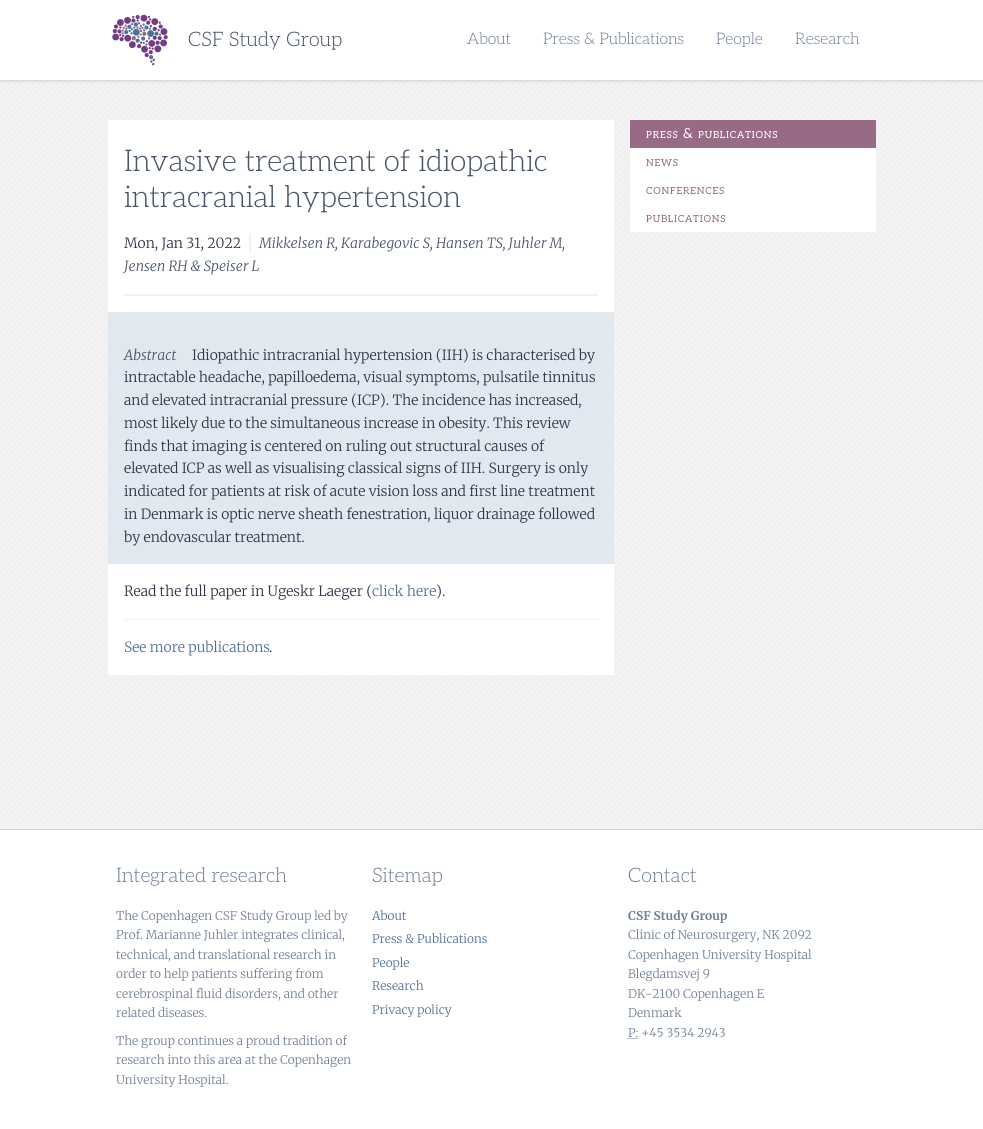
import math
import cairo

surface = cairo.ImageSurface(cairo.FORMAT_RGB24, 983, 1129)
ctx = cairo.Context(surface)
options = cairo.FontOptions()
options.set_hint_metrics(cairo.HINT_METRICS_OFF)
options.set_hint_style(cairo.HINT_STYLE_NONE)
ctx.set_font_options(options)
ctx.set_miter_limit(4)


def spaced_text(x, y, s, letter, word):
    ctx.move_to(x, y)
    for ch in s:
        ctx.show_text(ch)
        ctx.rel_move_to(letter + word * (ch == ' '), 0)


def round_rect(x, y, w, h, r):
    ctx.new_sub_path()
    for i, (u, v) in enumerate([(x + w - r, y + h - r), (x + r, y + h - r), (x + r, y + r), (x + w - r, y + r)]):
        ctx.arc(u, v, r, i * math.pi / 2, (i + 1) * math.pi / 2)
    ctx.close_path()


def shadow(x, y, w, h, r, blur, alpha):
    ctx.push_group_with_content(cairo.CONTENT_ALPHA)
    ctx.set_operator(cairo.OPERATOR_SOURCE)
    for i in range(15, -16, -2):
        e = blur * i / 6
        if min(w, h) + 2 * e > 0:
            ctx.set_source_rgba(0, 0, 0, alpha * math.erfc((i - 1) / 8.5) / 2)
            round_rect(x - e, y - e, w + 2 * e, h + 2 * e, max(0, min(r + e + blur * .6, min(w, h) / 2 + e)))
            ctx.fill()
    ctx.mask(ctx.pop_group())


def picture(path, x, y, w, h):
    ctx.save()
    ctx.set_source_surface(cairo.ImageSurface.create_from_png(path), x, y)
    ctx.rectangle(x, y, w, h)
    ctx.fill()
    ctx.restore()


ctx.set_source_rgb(0.941, 0.941, 0.941)
ctx.paint()
picture("img1.png", 0, 80, 983, 749)
ctx.set_source_rgb(0, 0, 0)
shadow(1, 2, 981, 78, 0, 1, 0.1)
shadow(0, 1, 983, 80, 0, 1.5, 0.1)
ctx.set_source_rgb(1, 1, 1)
ctx.rectangle(0, 0, 983, 80)
ctx.fill()
picture("img2.png", 112, 14, 56, 52)
ctx.select_font_face("Aleo Light")
ctx.set_font_size(20)
ctx.set_source_rgb(0.29, 0.333, 0.408)
ctx.move_to(188, 46)
ctx.show_text("CSF Study Group")
ctx.set_font_size(16)
ctx.set_source_rgb(0.443, 0.502, 0.588)
ctx.move_to(467, 44)
ctx.show_text("About")
ctx.move_to(543, 44)
ctx.show_text("Press & Publications")
ctx.move_to(716, 44)
ctx.show_text("People")
ctx.move_to(795, 44)
ctx.show_text("Research")
ctx.set_source_rgb(1, 1, 1)
ctx.rectangle(108, 120, 506, 555)
ctx.fill()
ctx.set_font_size(30)
ctx.set_source_rgb(0.29, 0.333, 0.408)
ctx.move_to(124, 171)
ctx.show_text("Invasive treatment of idiopathic")
ctx.move_to(124, 207)
ctx.show_text("intracranial hypertension")
ctx.set_source_rgb(0.929, 0.949, 0.969)
ctx.rectangle(124, 294, 474, 2)
ctx.fill()
ctx.select_font_face("Merriweather Light")
ctx.set_font_size(14)
ctx.set_source_rgb(0.176, 0.216, 0.282)
ctx.move_to(124, 248)
ctx.show_text("Mon, Jan 31, 2022")
ctx.select_font_face("Merriweather Light", cairo.FONT_SLANT_ITALIC)
ctx.set_source_rgb(0.29, 0.333, 0.408)
ctx.move_to(259, 248)
ctx.show_text("Mikkelsen R, Karabegovic S, Hansen TS, Juhler M,")
ctx.set_source_rgb(0.929, 0.949, 0.969)
ctx.rectangle(249, 234, 2, 18)
ctx.fill()
ctx.set_source_rgb(0.29, 0.333, 0.408)
ctx.move_to(124, 271)
ctx.show_text("Jensen RH & Speiser L")
ctx.set_source_rgb(0.886, 0.91, 0.941)
ctx.rectangle(108, 312, 506, 252)
ctx.fill()
ctx.set_source_rgb(0.29, 0.333, 0.408)
ctx.move_to(124, 360)
ctx.show_text("Abstract")
ctx.select_font_face("Merriweather Light")
ctx.set_source_rgb(0.176, 0.216, 0.282)
ctx.move_to(192, 360)
ctx.show_text("Idiopathic intracranial hypertension (IIH) is characterised by")
ctx.move_to(124, 382)
ctx.show_text("intractable headache, papilloedema, visual symptoms, pulsatile tinnitus")
ctx.move_to(124, 405)
ctx.show_text("and elevated intracranial pressure (ICP). The incidence has increased,")
ctx.move_to(124, 428)
ctx.show_text("most likely due to the simultaneous increase in obesity. This review")
ctx.move_to(124, 451)
ctx.show_text("finds that imaging is centered on ruling out structural causes of")
ctx.move_to(124, 473)
ctx.show_text("elevated ICP as well as visualising classical signs of IIH. Surgery is only")
ctx.move_to(124, 496)
ctx.show_text("indicated for patients at risk of acute vision loss and first line treatment")
ctx.move_to(124, 519)
ctx.show_text("in Denmark is optic nerve sheath fenestration, liquor drainage followed")
ctx.move_to(124, 542)
ctx.show_text("by endovascular treatment.")
ctx.move_to(124, 596)
ctx.show_text("Read the full paper in Ugeskr Laeger (")
ctx.set_source_rgb(0.318, 0.443, 0.596)
ctx.move_to(372, 596)
ctx.show_text("click here")
ctx.set_source_rgb(0.176, 0.216, 0.282)
ctx.move_to(436, 596)
ctx.show_text(").")
ctx.set_source_rgb(0.929, 0.949, 0.969)
ctx.rectangle(124, 619, 474, 1)
ctx.fill()
ctx.set_source_rgb(0.318, 0.443, 0.596)
ctx.move_to(124, 652)
ctx.show_text("See more publications")
ctx.set_source_rgb(0.176, 0.216, 0.282)
ctx.move_to(269, 652)
ctx.show_text(".")
ctx.set_source_rgb(0.6, 0.416, 0.525)
ctx.rectangle(630, 120, 246, 28)
ctx.fill()
ctx.select_font_face("Aleo")
ctx.set_font_size(9.75)
ctx.set_source_rgb(1, 1, 1)
spaced_text(646, 138, "PRESS", 0.75, 0)
ctx.set_font_size(14)
spaced_text(683, 138, "&", 0.75, 0)
ctx.set_font_size(9.75)
spaced_text(698, 138, "PUBLICATIONS", 0.75, 0)
ctx.rectangle(630, 148, 246, 84)
ctx.fill()
ctx.set_source_rgb(0.6, 0.416, 0.525)
spaced_text(646, 166, "NEWS", 0.75, 0)
spaced_text(646, 194, "CONFERENCES", 0.75, 0)
spaced_text(646, 222, "PUBLICATIONS", 0.75, 0)
ctx.set_source_rgb(1, 1, 1)
ctx.rectangle(0, 830, 983, 299)
ctx.fill()
ctx.set_source_rgb(0.796, 0.835, 0.878)
ctx.rectangle(0, 829, 983, 1)
ctx.fill()
ctx.select_font_face("Aleo Light")
ctx.set_font_size(20)
ctx.set_source_rgb(0.443, 0.502, 0.588)
ctx.move_to(116, 882)
ctx.show_text("Integrated research")
ctx.select_font_face("Merriweather Light")
ctx.set_font_size(12)
ctx.move_to(116, 920)
ctx.show_text("The Copenhagen CSF Study Group led by")
ctx.move_to(116, 939)
ctx.show_text("Prof. Marianne Juhler integrates clinical,")
ctx.move_to(116, 959)
ctx.show_text("technical, and translational research in")
ctx.move_to(116, 978)
ctx.show_text("order to help patients suffering from")
ctx.move_to(116, 998)
ctx.show_text("cerebrospinal fluid disorders, and other")
ctx.move_to(116, 1017)
ctx.show_text("related diseases.")
ctx.move_to(116, 1045)
ctx.show_text("The group continues a proud tradition of")
ctx.move_to(116, 1064)
ctx.show_text("research into this area at the Copenhagen")
ctx.move_to(116, 1084)
ctx.show_text("University Hospital.")
ctx.select_font_face("Aleo Light")
ctx.set_font_size(20)
ctx.move_to(372, 882)
ctx.show_text("Sitemap")
ctx.select_font_face("Merriweather Light")
ctx.set_font_size(12)
ctx.set_source_rgb(0.318, 0.443, 0.596)
ctx.move_to(372, 920)
ctx.show_text("About")
ctx.move_to(372, 943)
ctx.show_text("Press & Publications")
ctx.move_to(372, 967)
ctx.show_text("People")
ctx.move_to(372, 990)
ctx.show_text("Research")
ctx.move_to(372, 1014)
ctx.show_text("Privacy policy")
ctx.select_font_face("Aleo Light")
ctx.set_font_size(20)
ctx.set_source_rgb(0.443, 0.502, 0.588)
ctx.move_to(628, 882)
ctx.show_text("Contact")
ctx.select_font_face("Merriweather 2 Light")
ctx.set_font_size(12)
ctx.move_to(628, 920)
ctx.show_text("CSF Study Group")
ctx.select_font_face("Merriweather Light")
ctx.move_to(628, 939)
ctx.show_text("Clinic of Neurosurgery, NK 2092")
ctx.move_to(628, 959)
ctx.show_text("Copenhagen University Hospital")
ctx.move_to(628, 978)
ctx.show_text("Blegdamsvej 9")
ctx.move_to(628, 998)
ctx.show_text("DK-2100 Copenhagen E")
ctx.move_to(628, 1017)
ctx.show_text("Denmark")
ctx.move_to(628, 1037)
ctx.show_text("P: +45 3534 2943")
ctx.new_path()
ctx.move_to(627.5, 1038.5)
ctx.line_to(638, 1038.5)
ctx.set_line_width(1)
ctx.set_dash([1, 1])
ctx.stroke()
surface.write_to_png("page.png")
